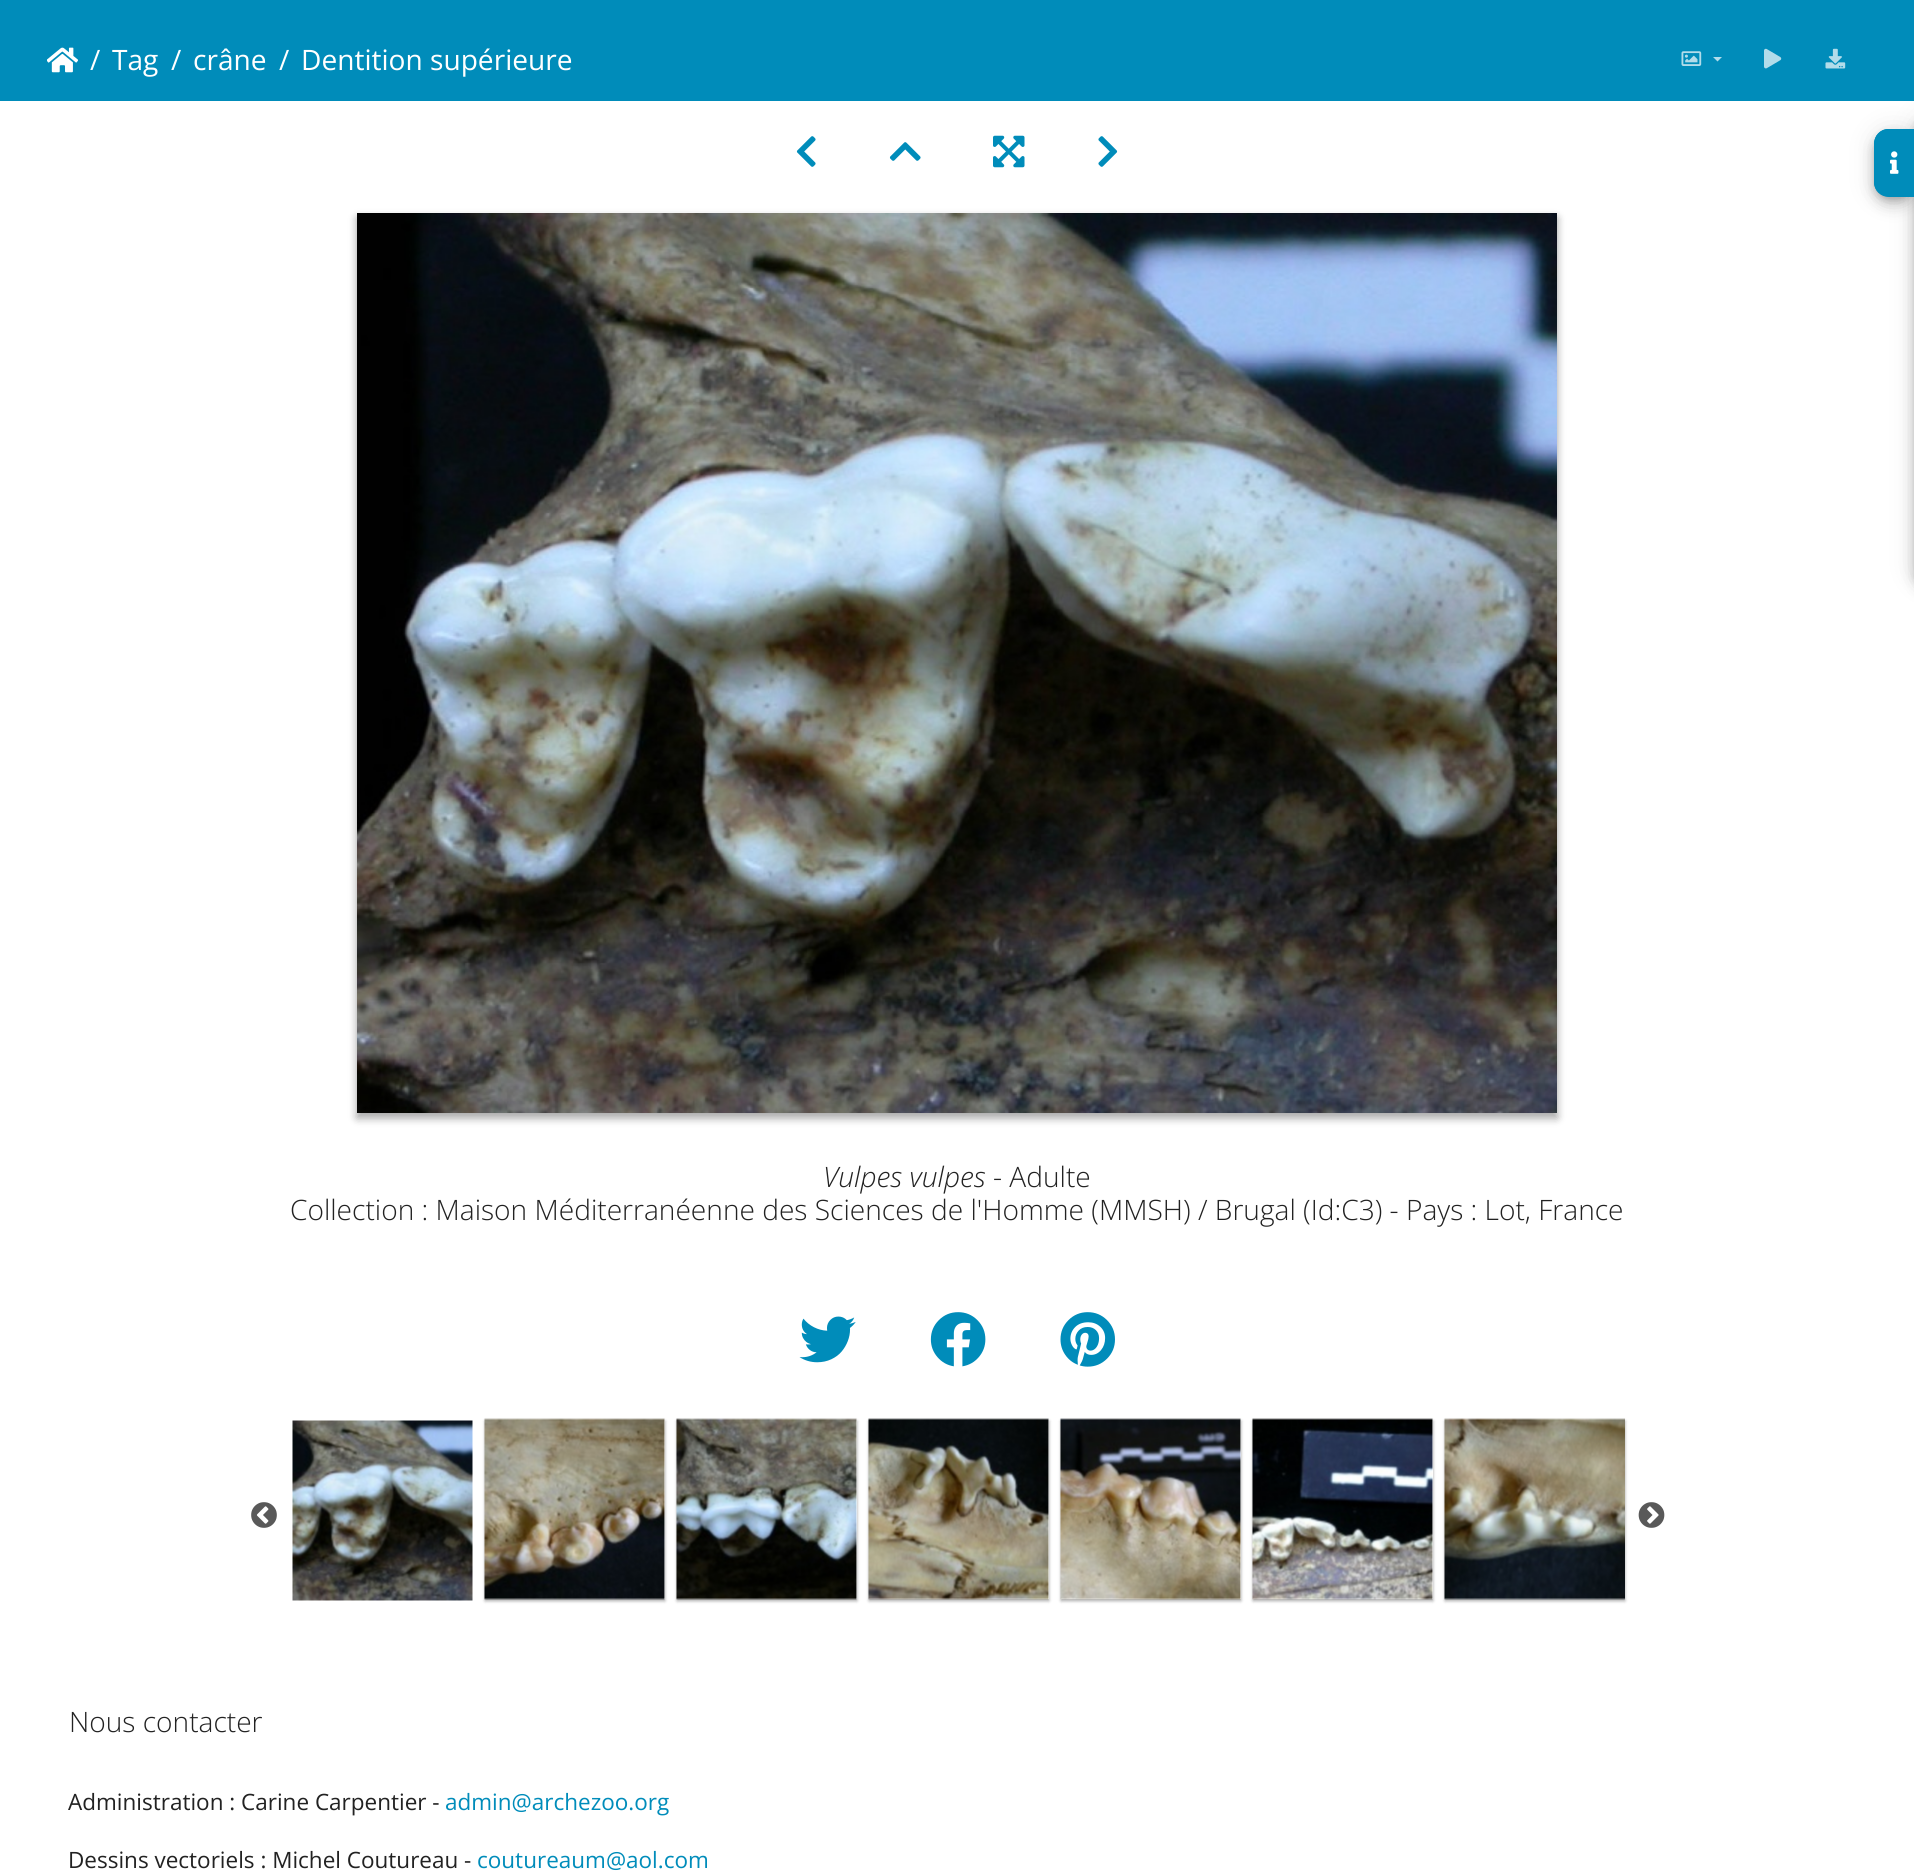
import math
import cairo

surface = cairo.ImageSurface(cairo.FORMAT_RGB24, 1914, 1871)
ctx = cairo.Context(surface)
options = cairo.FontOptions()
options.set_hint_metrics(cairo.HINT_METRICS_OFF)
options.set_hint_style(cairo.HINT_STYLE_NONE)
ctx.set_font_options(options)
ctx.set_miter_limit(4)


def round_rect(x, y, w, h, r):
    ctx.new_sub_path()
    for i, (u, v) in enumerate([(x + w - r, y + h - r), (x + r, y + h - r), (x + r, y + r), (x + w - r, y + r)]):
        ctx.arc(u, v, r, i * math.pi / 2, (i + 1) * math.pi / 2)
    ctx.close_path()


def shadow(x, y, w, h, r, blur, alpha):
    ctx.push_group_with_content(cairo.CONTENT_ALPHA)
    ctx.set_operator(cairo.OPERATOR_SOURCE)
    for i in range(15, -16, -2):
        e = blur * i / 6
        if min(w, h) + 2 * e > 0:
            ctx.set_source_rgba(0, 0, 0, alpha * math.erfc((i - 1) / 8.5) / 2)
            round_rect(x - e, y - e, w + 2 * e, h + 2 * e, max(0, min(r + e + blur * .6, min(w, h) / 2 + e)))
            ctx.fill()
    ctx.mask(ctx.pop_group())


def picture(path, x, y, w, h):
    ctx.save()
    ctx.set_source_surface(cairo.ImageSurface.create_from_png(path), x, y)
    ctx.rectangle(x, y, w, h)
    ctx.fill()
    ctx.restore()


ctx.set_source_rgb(1, 1, 1)
ctx.paint()
ctx.set_source_rgb(0, 0, 0)
shadow(1914, 116, 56, 468, 15, 13.5, 0.12)
shadow(1914, 123, 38, 468, 15, 7.5, 0.14)
shadow(1874, 131, 40, 67, 15, 13.5, 0.12)
ctx.set_source_rgb(0, 0.549, 0.729)
ctx.rectangle(0, 0, 1914, 101)
ctx.fill()
picture("img1.png", 47, 47, 31, 26)
ctx.select_font_face("Open Sans")
ctx.set_font_size(28.1)
ctx.set_source_rgb(1, 1, 1)
ctx.move_to(90, 70)
ctx.show_text("/")
ctx.move_to(112, 70)
ctx.show_text("Tag")
ctx.move_to(171, 70)
ctx.show_text("/")
ctx.move_to(193, 70)
ctx.show_text("crâne")
ctx.move_to(279, 70)
ctx.show_text("/")
ctx.move_to(301, 70)
ctx.show_text("Dentition supérieure")
picture("img2.png", 1681, 51, 21, 15)
ctx.set_source_rgb(0.702, 0.867, 0.918)
ctx.new_path()
ctx.move_to(1713, 57)
ctx.line_to(1722, 57)
ctx.line_to(1717.5, 61.5)
ctx.close_path()
ctx.fill()
picture("img3.png", 1764, 48, 18, 21)
picture("img4.png", 1825, 48, 21, 21)
picture("img5.png", 796, 136, 20, 31)
picture("img6.png", 889, 142, 32, 19)
picture("img7.png", 993, 135, 32, 33)
picture("img8.png", 1098, 136, 20, 31)
ctx.set_source_rgb(0, 0, 0)
shadow(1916, 120, 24, 465, 14, 4, 0.2)
shadow(1875, 135, 38, 65, 14, 4, 0.2)
shadow(1874, 138, 40, 68, 15, 7.5, 0.14)
ctx.set_source_rgb(0, 0.549, 0.729)
ctx.new_path()
ctx.move_to(1889, 129)
ctx.line_to(1914, 129)
ctx.line_to(1914, 197)
ctx.line_to(1889, 197)
ctx.curve_to(1880.5, 197, 1874, 190.5, 1874, 182)
ctx.line_to(1874, 144)
ctx.curve_to(1874, 135.5, 1880.5, 129, 1889, 129)
ctx.close_path()
ctx.fill()
ctx.set_fill_rule(cairo.FILL_RULE_EVEN_ODD)
ctx.new_path()
ctx.move_to(1888, 129)
ctx.line_to(1914, 129)
ctx.line_to(1914, 196)
ctx.line_to(1888, 196)
ctx.curve_to(1880, 196, 1874, 190, 1874, 182)
ctx.line_to(1874, 144)
ctx.curve_to(1874, 136, 1880, 129, 1888, 129)
ctx.close_path()
ctx.move_to(1888, 130)
ctx.line_to(1914, 130)
ctx.line_to(1914, 195)
ctx.line_to(1888, 195)
ctx.curve_to(1881, 195, 1875, 189, 1875, 182)
ctx.line_to(1875, 144)
ctx.curve_to(1875, 137, 1881, 130, 1888, 130)
ctx.close_path()
ctx.fill()
picture("img9.png", 1890, 151, 9, 23)
ctx.set_source_rgb(0, 0, 0)
shadow(357, 218, 1200, 900, 0, 4.5, 0.23)
shadow(357, 218, 1200, 900, 0, 4.5, 0.16)
picture("img10.png", 357, 213, 1200, 900)
ctx.select_font_face("Open Sans Light", cairo.FONT_SLANT_ITALIC)
ctx.set_source_rgb(0.133, 0.133, 0.133)
ctx.move_to(823, 1187)
ctx.show_text("Vulpes vulpes")
ctx.select_font_face("Open Sans Light")
ctx.move_to(993, 1187)
ctx.show_text("- Adulte")
ctx.move_to(290, 1220)
ctx.show_text("Collection : Maison Méditerranéenne des Sciences de l'Homme (MMSH) / Brugal (Id:C3) - Pays : Lot, France")
picture("img11.png", 799, 1316, 57, 47)
picture("img12.png", 930, 1312, 56, 55)
picture("img13.png", 1060, 1312, 55, 55)
picture("img14.png", 251, 1502, 26, 26)
picture("img15.png", 292, 1420, 181, 181)
ctx.save()
ctx.new_path()
ctx.move_to(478, 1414)
ctx.line_to(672, 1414)
ctx.line_to(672, 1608)
ctx.line_to(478, 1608)
ctx.close_path()
ctx.move_to(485, 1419)
ctx.line_to(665, 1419)
ctx.line_to(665, 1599)
ctx.line_to(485, 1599)
ctx.close_path()
ctx.clip()
ctx.set_source_rgb(0, 0, 0)
shadow(485, 1421, 180, 180, 0, 2, 0.12)
ctx.restore()
ctx.save()
ctx.new_path()
ctx.move_to(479, 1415)
ctx.line_to(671, 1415)
ctx.line_to(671, 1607)
ctx.line_to(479, 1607)
ctx.close_path()
ctx.move_to(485, 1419)
ctx.line_to(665, 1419)
ctx.line_to(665, 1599)
ctx.line_to(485, 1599)
ctx.close_path()
ctx.clip()
ctx.set_source_rgb(0, 0, 0)
shadow(485, 1421, 180, 180, 0, 1.5, 0.24)
ctx.restore()
picture("img16.png", 484, 1418, 181, 182)
ctx.save()
ctx.new_path()
ctx.move_to(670, 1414)
ctx.line_to(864, 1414)
ctx.line_to(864, 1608)
ctx.line_to(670, 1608)
ctx.close_path()
ctx.move_to(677, 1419)
ctx.line_to(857, 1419)
ctx.line_to(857, 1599)
ctx.line_to(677, 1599)
ctx.close_path()
ctx.clip()
ctx.set_source_rgb(0, 0, 0)
shadow(677, 1421, 180, 180, 0, 2, 0.12)
ctx.restore()
ctx.save()
ctx.new_path()
ctx.move_to(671, 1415)
ctx.line_to(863, 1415)
ctx.line_to(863, 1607)
ctx.line_to(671, 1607)
ctx.close_path()
ctx.move_to(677, 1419)
ctx.line_to(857, 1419)
ctx.line_to(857, 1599)
ctx.line_to(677, 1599)
ctx.close_path()
ctx.clip()
ctx.set_source_rgb(0, 0, 0)
shadow(677, 1421, 180, 180, 0, 1.5, 0.24)
ctx.restore()
picture("img17.png", 676, 1418, 181, 182)
ctx.save()
ctx.new_path()
ctx.move_to(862, 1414)
ctx.line_to(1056, 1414)
ctx.line_to(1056, 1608)
ctx.line_to(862, 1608)
ctx.close_path()
ctx.move_to(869, 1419)
ctx.line_to(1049, 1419)
ctx.line_to(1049, 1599)
ctx.line_to(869, 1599)
ctx.close_path()
ctx.clip()
ctx.set_source_rgb(0, 0, 0)
shadow(869, 1421, 180, 180, 0, 2, 0.12)
ctx.restore()
ctx.save()
ctx.new_path()
ctx.move_to(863, 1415)
ctx.line_to(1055, 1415)
ctx.line_to(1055, 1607)
ctx.line_to(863, 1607)
ctx.close_path()
ctx.move_to(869, 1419)
ctx.line_to(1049, 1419)
ctx.line_to(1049, 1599)
ctx.line_to(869, 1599)
ctx.close_path()
ctx.clip()
ctx.set_source_rgb(0, 0, 0)
shadow(869, 1421, 180, 180, 0, 1.5, 0.24)
ctx.restore()
picture("img18.png", 868, 1418, 181, 182)
ctx.save()
ctx.new_path()
ctx.move_to(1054, 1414)
ctx.line_to(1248, 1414)
ctx.line_to(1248, 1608)
ctx.line_to(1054, 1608)
ctx.close_path()
ctx.move_to(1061, 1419)
ctx.line_to(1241, 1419)
ctx.line_to(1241, 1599)
ctx.line_to(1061, 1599)
ctx.close_path()
ctx.clip()
ctx.set_source_rgb(0, 0, 0)
shadow(1061, 1421, 180, 180, 0, 2, 0.12)
ctx.restore()
ctx.save()
ctx.new_path()
ctx.move_to(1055, 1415)
ctx.line_to(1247, 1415)
ctx.line_to(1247, 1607)
ctx.line_to(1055, 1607)
ctx.close_path()
ctx.move_to(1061, 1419)
ctx.line_to(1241, 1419)
ctx.line_to(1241, 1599)
ctx.line_to(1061, 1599)
ctx.close_path()
ctx.clip()
ctx.set_source_rgb(0, 0, 0)
shadow(1061, 1421, 180, 180, 0, 1.5, 0.24)
ctx.restore()
picture("img19.png", 1060, 1418, 181, 182)
ctx.save()
ctx.new_path()
ctx.move_to(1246, 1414)
ctx.line_to(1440, 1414)
ctx.line_to(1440, 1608)
ctx.line_to(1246, 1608)
ctx.close_path()
ctx.move_to(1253, 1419)
ctx.line_to(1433, 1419)
ctx.line_to(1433, 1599)
ctx.line_to(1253, 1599)
ctx.close_path()
ctx.clip()
ctx.set_source_rgb(0, 0, 0)
shadow(1253, 1421, 180, 180, 0, 2, 0.12)
ctx.restore()
ctx.save()
ctx.new_path()
ctx.move_to(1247, 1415)
ctx.line_to(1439, 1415)
ctx.line_to(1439, 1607)
ctx.line_to(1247, 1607)
ctx.close_path()
ctx.move_to(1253, 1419)
ctx.line_to(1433, 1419)
ctx.line_to(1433, 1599)
ctx.line_to(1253, 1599)
ctx.close_path()
ctx.clip()
ctx.set_source_rgb(0, 0, 0)
shadow(1253, 1421, 180, 180, 0, 1.5, 0.24)
ctx.restore()
picture("img20.png", 1252, 1418, 181, 182)
ctx.save()
ctx.new_path()
ctx.move_to(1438, 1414)
ctx.line_to(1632, 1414)
ctx.line_to(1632, 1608)
ctx.line_to(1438, 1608)
ctx.close_path()
ctx.move_to(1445, 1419)
ctx.line_to(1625, 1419)
ctx.line_to(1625, 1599)
ctx.line_to(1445, 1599)
ctx.close_path()
ctx.clip()
ctx.set_source_rgb(0, 0, 0)
shadow(1445, 1421, 180, 180, 0, 2, 0.12)
ctx.restore()
ctx.save()
ctx.new_path()
ctx.move_to(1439, 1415)
ctx.line_to(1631, 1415)
ctx.line_to(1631, 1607)
ctx.line_to(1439, 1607)
ctx.close_path()
ctx.move_to(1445, 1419)
ctx.line_to(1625, 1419)
ctx.line_to(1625, 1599)
ctx.line_to(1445, 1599)
ctx.close_path()
ctx.clip()
ctx.set_source_rgb(0, 0, 0)
shadow(1445, 1421, 180, 180, 0, 1.5, 0.24)
ctx.restore()
picture("img21.png", 1444, 1418, 181, 182)
picture("img22.png", 1638, 1502, 27, 26)
ctx.move_to(69, 1732)
ctx.show_text("Nous contacter")
ctx.select_font_face("Open Sans")
ctx.set_font_size(22.5)
ctx.move_to(68, 1810)
ctx.show_text("Administration : Carine Carpentier -")
ctx.set_source_rgb(0, 0.549, 0.729)
ctx.move_to(445, 1810)
ctx.show_text("admin@archezoo.org")
ctx.set_source_rgb(0.133, 0.133, 0.133)
ctx.move_to(68, 1868)
ctx.show_text("Dessins vectoriels : Michel Coutureau -")
ctx.set_source_rgb(0, 0.549, 0.729)
ctx.move_to(477, 1868)
ctx.show_text("coutureaum@aol.com")
surface.write_to_png("page.png")
